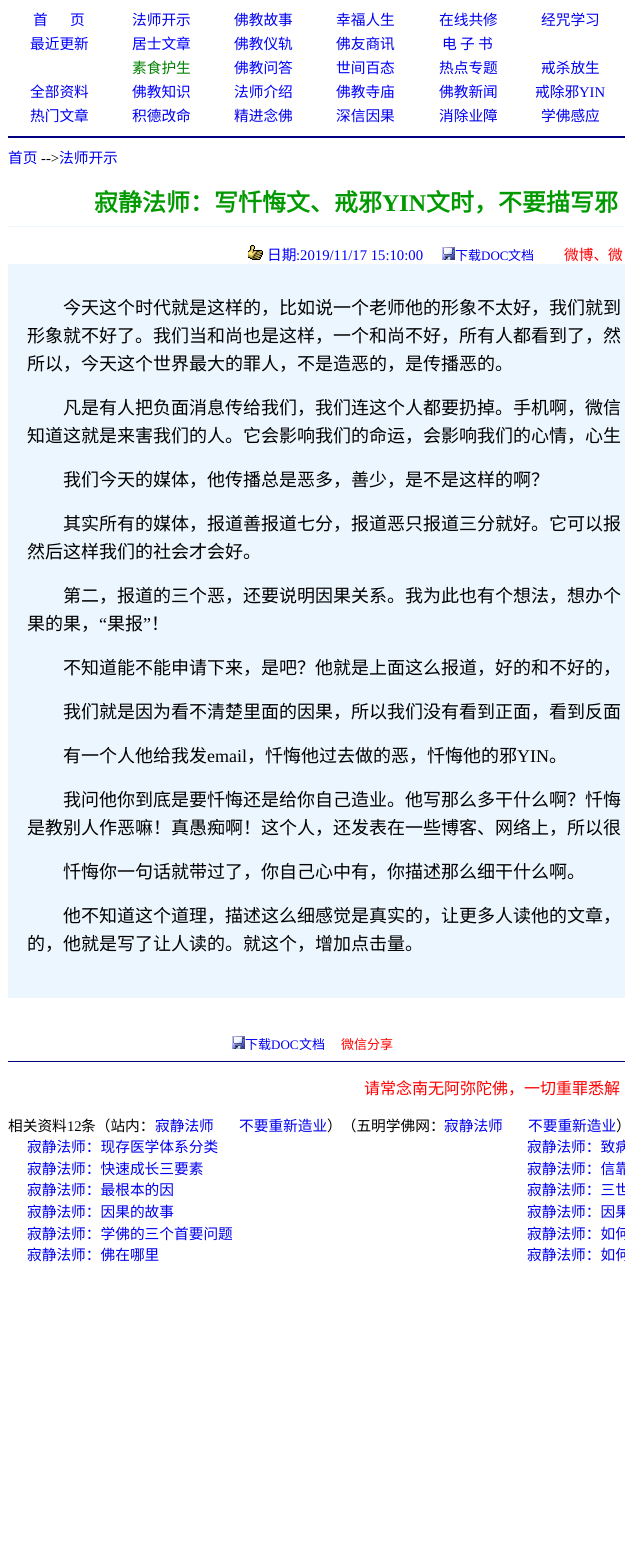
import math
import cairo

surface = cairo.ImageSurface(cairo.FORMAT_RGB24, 625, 1545)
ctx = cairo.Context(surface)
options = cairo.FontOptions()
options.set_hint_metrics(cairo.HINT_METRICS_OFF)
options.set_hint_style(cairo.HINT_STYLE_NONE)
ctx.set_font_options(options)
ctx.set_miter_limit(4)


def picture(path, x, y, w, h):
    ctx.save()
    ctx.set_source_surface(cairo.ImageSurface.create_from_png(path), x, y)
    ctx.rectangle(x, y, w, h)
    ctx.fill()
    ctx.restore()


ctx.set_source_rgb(1, 1, 1)
ctx.paint()
ctx.select_font_face("Noto Sans CJK SC")
ctx.set_font_size(14.7)
ctx.set_source_rgb(0, 0, 1)
ctx.move_to(33, 25)
ctx.show_text("首")
ctx.move_to(70, 25)
ctx.show_text("页")
ctx.set_source_rgb(0, 0, 0.933)
ctx.move_to(132, 25)
ctx.show_text("法师开示")
ctx.move_to(234, 25)
ctx.show_text("佛教故事")
ctx.move_to(336, 25)
ctx.show_text("幸福人生")
ctx.move_to(439, 25)
ctx.show_text("在线共修")
ctx.move_to(541, 25)
ctx.show_text("经咒学习")
ctx.set_source_rgb(0, 0, 1)
ctx.move_to(30, 49)
ctx.show_text("最近更新")
ctx.move_to(132, 49)
ctx.show_text("居士文章")
ctx.move_to(234, 49)
ctx.show_text("佛教仪轨")
ctx.set_source_rgb(0, 0, 0.933)
ctx.move_to(336, 49)
ctx.show_text("佛友商讯")
ctx.move_to(442, 49)
ctx.show_text("电 子 书")
ctx.set_source_rgb(0, 0.502, 0)
ctx.move_to(132, 73)
ctx.show_text("素食护生")
ctx.set_source_rgb(0, 0, 1)
ctx.move_to(234, 73)
ctx.show_text("佛教问答")
ctx.move_to(336, 73)
ctx.show_text("世间百态")
ctx.set_source_rgb(0, 0, 0.933)
ctx.move_to(439, 73)
ctx.show_text("热点专题")
ctx.move_to(541, 73)
ctx.show_text("戒杀放生")
ctx.move_to(30, 97)
ctx.show_text("全部资料")
ctx.set_source_rgb(0, 0, 1)
ctx.move_to(132, 97)
ctx.show_text("佛教知识")
ctx.move_to(234, 97)
ctx.show_text("法师介绍")
ctx.move_to(336, 97)
ctx.show_text("佛教寺庙")
ctx.move_to(439, 97)
ctx.show_text("佛教新闻")
ctx.set_source_rgb(0, 0, 0.933)
ctx.move_to(535, 97)
ctx.show_text("戒除邪")
ctx.select_font_face("Liberation Serif")
ctx.move_to(579, 97)
ctx.show_text("YIN")
ctx.select_font_face("Noto Sans CJK SC")
ctx.move_to(30, 121)
ctx.show_text("热门文章")
ctx.move_to(132, 121)
ctx.show_text("积德改命")
ctx.move_to(234, 121)
ctx.show_text("精进念佛")
ctx.move_to(336, 121)
ctx.show_text("深信因果")
ctx.move_to(439, 121)
ctx.show_text("消除业障")
ctx.move_to(541, 121)
ctx.show_text("学佛感应")
ctx.set_source_rgb(0, 0, 0.502)
ctx.rectangle(8, 136, 617, 2)
ctx.fill()
ctx.set_source_rgb(0, 0, 0.933)
ctx.move_to(8, 163)
ctx.show_text("首页")
ctx.select_font_face("Liberation Serif")
ctx.set_source_rgb(0, 0, 0)
ctx.move_to(41, 163)
ctx.show_text("-->")
ctx.select_font_face("Noto Sans CJK SC")
ctx.set_source_rgb(0, 0, 0.933)
ctx.move_to(59, 163)
ctx.show_text("法师开示")
ctx.select_font_face("Noto Sans CJK SC", cairo.FONT_SLANT_NORMAL, cairo.FONT_WEIGHT_BOLD)
ctx.set_font_size(24)
ctx.set_source_rgb(0, 0.6, 0)
ctx.move_to(94, 211)
ctx.show_text("寂静法师：写忏悔文、戒邪")
ctx.select_font_face("Liberation Serif", cairo.FONT_SLANT_NORMAL, cairo.FONT_WEIGHT_BOLD)
ctx.move_to(382, 211)
ctx.show_text("YIN")
ctx.select_font_face("Noto Sans CJK SC", cairo.FONT_SLANT_NORMAL, cairo.FONT_WEIGHT_BOLD)
ctx.move_to(426, 211)
ctx.show_text("文时，不要描写邪")
ctx.set_source_rgb(0.925, 0.961, 1)
ctx.rectangle(8, 226, 617, 1)
ctx.fill()
picture("img1.png", 248, 245, 15, 15)
ctx.select_font_face("Noto Sans CJK SC")
ctx.set_font_size(14.7)
ctx.set_source_rgb(0, 0, 1)
ctx.move_to(267, 260)
ctx.show_text("日期")
ctx.select_font_face("Liberation Serif")
ctx.move_to(296, 260)
ctx.show_text(":2019/11/17 15:10:00")
picture("img2.png", 442, 247, 13, 13)
ctx.select_font_face("Noto Sans CJK SC")
ctx.set_font_size(13)
ctx.set_source_rgb(0, 0, 0.933)
ctx.move_to(455, 260)
ctx.show_text("下载")
ctx.select_font_face("Liberation Serif")
ctx.move_to(481, 260)
ctx.show_text("DOC")
ctx.select_font_face("Noto Sans CJK SC")
ctx.move_to(508, 260)
ctx.show_text("文档")
ctx.set_font_size(14.7)
ctx.set_source_rgb(1, 0, 0)
ctx.move_to(564, 260)
ctx.show_text("微博、微")
ctx.set_source_rgb(0.925, 0.961, 1)
ctx.rectangle(8, 264, 617, 734)
ctx.fill()
ctx.set_font_size(18)
ctx.set_source_rgb(0, 0, 0)
ctx.move_to(63, 314)
ctx.show_text("今天这个时代就是这样的，比如说一个老师他的形象不太好，我们就到")
ctx.move_to(27, 342)
ctx.show_text("形象就不好了。我们当和尚也是这样，一个和尚不好，所有人都看到了，然")
ctx.move_to(27, 370)
ctx.show_text("所以，今天这个世界最大的罪人，不是造恶的，是传播恶的。")
ctx.move_to(63, 414)
ctx.show_text("凡是有人把负面消息传给我们，我们连这个人都要扔掉。手机啊，微信")
ctx.move_to(27, 442)
ctx.show_text("知道这就是来害我们的人。它会影响我们的命运，会影响我们的心情，心生")
ctx.move_to(63, 486)
ctx.show_text("我们今天的媒体，他传播总是恶多，善少，是不是这样的啊？")
ctx.move_to(63, 530)
ctx.show_text("其实所有的媒体，报道善报道七分，报道恶只报道三分就好。它可以报")
ctx.move_to(27, 558)
ctx.show_text("然后这样我们的社会才会好。")
ctx.move_to(63, 602)
ctx.show_text("第二，报道的三个恶，还要说明因果关系。我为此也有个想法，想办个")
ctx.move_to(27, 630)
ctx.show_text("果的果，")
ctx.select_font_face("Liberation Serif")
ctx.move_to(99, 630)
ctx.show_text("“")
ctx.select_font_face("Noto Sans CJK SC")
ctx.move_to(107, 630)
ctx.show_text("果报")
ctx.select_font_face("Liberation Serif")
ctx.move_to(143, 630)
ctx.show_text("”")
ctx.select_font_face("Noto Sans CJK SC")
ctx.move_to(151, 630)
ctx.show_text("！")
ctx.move_to(63, 674)
ctx.show_text("不知道能不能申请下来，是吧？他就是上面这么报道，好的和不好的，")
ctx.move_to(63, 718)
ctx.show_text("我们就是因为看不清楚里面的因果，所以我们没有看到正面，看到反面")
ctx.move_to(63, 762)
ctx.show_text("有一个人他给我发")
ctx.select_font_face("Liberation Serif")
ctx.move_to(207, 762)
ctx.show_text("email")
ctx.select_font_face("Noto Sans CJK SC")
ctx.move_to(247, 762)
ctx.show_text("，忏悔他过去做的恶，忏悔他的邪")
ctx.select_font_face("Liberation Serif")
ctx.move_to(517, 762)
ctx.show_text("YIN")
ctx.select_font_face("Noto Sans CJK SC")
ctx.move_to(549, 762)
ctx.show_text("。")
ctx.move_to(63, 806)
ctx.show_text("我问他你到底是要忏悔还是给你自己造业。他写那么多干什么啊？忏悔")
ctx.move_to(27, 834)
ctx.show_text("是教别人作恶嘛！真愚痴啊！这个人，还发表在一些博客、网络上，所以很")
ctx.move_to(63, 878)
ctx.show_text("忏悔你一句话就带过了，你自己心中有，你描述那么细干什么啊。")
ctx.move_to(63, 922)
ctx.show_text("他不知道这个道理，描述这么细感觉是真实的，让更多人读他的文章，")
ctx.move_to(27, 950)
ctx.show_text("的，他就是写了让人读的。就这个，增加点击量。")
picture("img2.png", 232, 1036, 13, 13)
ctx.set_font_size(13)
ctx.set_source_rgb(0, 0, 0.933)
ctx.move_to(245, 1049)
ctx.show_text("下载")
ctx.select_font_face("Liberation Serif")
ctx.move_to(271, 1049)
ctx.show_text("DOC")
ctx.select_font_face("Noto Sans CJK SC")
ctx.move_to(299, 1049)
ctx.show_text("文档")
ctx.set_source_rgb(1, 0, 0)
ctx.move_to(341, 1049)
ctx.show_text("微信分享")
ctx.set_source_rgb(0, 0, 0.502)
ctx.rectangle(8, 1061, 617, 1)
ctx.fill()
ctx.set_font_size(16)
ctx.set_source_rgb(1, 0, 0)
ctx.move_to(364, 1094)
ctx.show_text("请常念南无阿弥陀佛，一切重罪悉解")
ctx.set_font_size(14.7)
ctx.set_source_rgb(0, 0, 0)
ctx.move_to(8, 1131)
ctx.show_text("相关资料")
ctx.select_font_face("Liberation Serif")
ctx.move_to(67, 1131)
ctx.show_text("12")
ctx.select_font_face("Noto Sans CJK SC")
ctx.move_to(81, 1131)
ctx.show_text("条（站内：")
ctx.set_source_rgb(0, 0, 0.933)
ctx.move_to(155, 1131)
ctx.show_text("寂静法师")
ctx.move_to(239, 1131)
ctx.show_text("不要重新造业")
ctx.set_source_rgb(0, 0, 0)
ctx.move_to(327, 1131)
ctx.show_text("）（五明学佛网：")
ctx.set_source_rgb(0, 0, 0.933)
ctx.move_to(444, 1131)
ctx.show_text("寂静法师")
ctx.move_to(528, 1131)
ctx.show_text("不要重新造业")
ctx.set_source_rgb(0, 0, 0)
ctx.move_to(616, 1131)
ctx.show_text("）")
ctx.set_source_rgb(0, 0, 0.933)
ctx.move_to(27, 1152)
ctx.show_text("寂静法师：现存医学体系分类")
ctx.move_to(527, 1152)
ctx.show_text("寂静法师：致病")
ctx.move_to(27, 1174)
ctx.show_text("寂静法师：快速成长三要素")
ctx.move_to(527, 1174)
ctx.show_text("寂静法师：信靠")
ctx.move_to(27, 1195)
ctx.show_text("寂静法师：最根本的因")
ctx.move_to(527, 1195)
ctx.show_text("寂静法师：三世")
ctx.move_to(27, 1217)
ctx.show_text("寂静法师：因果的故事")
ctx.move_to(527, 1217)
ctx.show_text("寂静法师：因果")
ctx.move_to(27, 1239)
ctx.show_text("寂静法师：学佛的三个首要问题")
ctx.move_to(527, 1239)
ctx.show_text("寂静法师：如何")
ctx.move_to(27, 1260)
ctx.show_text("寂静法师：佛在哪里")
ctx.move_to(527, 1260)
ctx.show_text("寂静法师：如何")
surface.write_to_png("page.png")
